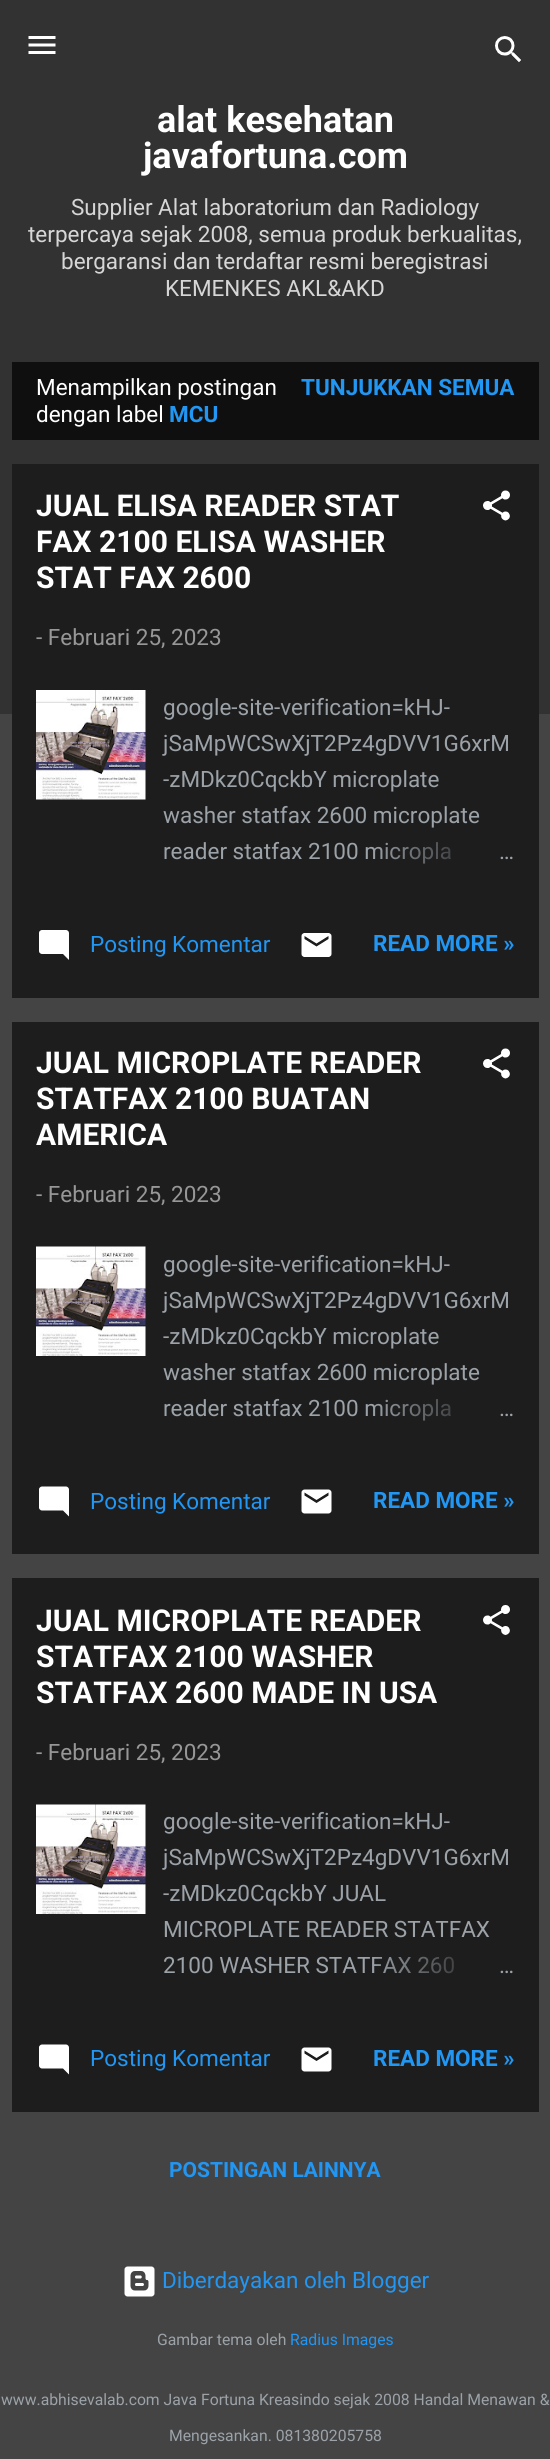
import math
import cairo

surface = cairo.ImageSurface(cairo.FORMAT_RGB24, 550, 2459)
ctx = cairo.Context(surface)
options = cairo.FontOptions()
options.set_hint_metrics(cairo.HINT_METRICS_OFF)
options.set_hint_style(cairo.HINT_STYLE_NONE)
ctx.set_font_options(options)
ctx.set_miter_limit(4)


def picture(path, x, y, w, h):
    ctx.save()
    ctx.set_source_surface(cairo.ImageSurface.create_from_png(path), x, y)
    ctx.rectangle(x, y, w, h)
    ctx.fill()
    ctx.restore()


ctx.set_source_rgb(0.267, 0.267, 0.267)
ctx.paint()
ctx.set_source_rgb(0.196, 0.196, 0.196)
ctx.rectangle(0, 0, 550, 714)
ctx.fill()
picture("img1.png", 28, 36, 28, 18)
picture("img2.png", 495, 36, 26, 27)
ctx.select_font_face("Roboto", cairo.FONT_SLANT_NORMAL, cairo.FONT_WEIGHT_BOLD)
ctx.set_font_size(36)
ctx.set_source_rgb(1, 1, 1)
ctx.move_to(157, 132)
ctx.show_text("alat kesehatan")
ctx.move_to(143, 168)
ctx.show_text("javafortuna.com")
ctx.select_font_face("Roboto")
ctx.set_font_size(22.5)
ctx.set_source_rgb(0.839, 0.839, 0.839)
ctx.move_to(71, 215)
ctx.show_text("Supplier Alat laboratorium dan Radiology")
ctx.move_to(28, 242)
ctx.show_text("terpercaya sejak 2008, semua produk berkualitas,")
ctx.move_to(61, 269)
ctx.show_text("bergaransi dan terdaftar resmi beregistrasi")
ctx.move_to(165, 296)
ctx.show_text("KEMENKES AKL&AKD")
ctx.set_source_rgb(0.059, 0.059, 0.059)
ctx.rectangle(12, 362, 527, 78)
ctx.fill()
ctx.set_source_rgb(1, 1, 1)
ctx.move_to(36, 395)
ctx.show_text("Menampilkan postingan")
ctx.move_to(36, 422)
ctx.show_text("dengan label")
ctx.select_font_face("Roboto", cairo.FONT_SLANT_NORMAL, cairo.FONT_WEIGHT_BOLD)
ctx.set_source_rgb(0.129, 0.588, 0.953)
ctx.move_to(169, 422)
ctx.show_text("MCU")
ctx.move_to(301, 395)
ctx.show_text("TUNJUKKAN SEMUA")
ctx.set_source_rgb(0.114, 0.114, 0.114)
ctx.rectangle(12, 464, 527, 534)
ctx.fill()
ctx.set_font_size(30)
ctx.set_source_rgb(1, 1, 1)
ctx.move_to(36, 516)
ctx.show_text("JUAL ELISA READER STAT")
ctx.move_to(36, 552)
ctx.show_text("FAX 2100 ELISA WASHER")
ctx.move_to(36, 588)
ctx.show_text("STAT FAX 2600")
picture("img3.png", 483, 490, 27, 31)
ctx.select_font_face("Roboto")
ctx.set_font_size(22.5)
ctx.set_source_rgb(0.592, 0.592, 0.592)
ctx.move_to(36, 645)
ctx.show_text("- Februari 25, 2023")
picture("img4.png", 36, 690, 110, 110)
ctx.set_source_rgb(0.608, 0.635, 0.659)
ctx.move_to(163, 715)
ctx.show_text("google-site-verification=kHJ-")
ctx.move_to(163, 751)
ctx.show_text("jSaMpWCSwXjT2Pz4gDVV1G6xrM")
ctx.move_to(163, 787)
ctx.show_text("-zMDkz0CqckbY microplate")
ctx.move_to(163, 823)
ctx.show_text("washer statfax 2600 microplate")
ctx.move_to(163, 859)
ctx.show_text("reader statfax 2100 micropla")
gradient = cairo.LinearGradient(515, 852, 371, 852)
gradient.add_color_stop_rgba(0, 0.114, 0.114, 0.114, 1)
gradient.add_color_stop_rgba(0.2, 0.114, 0.114, 0.114, 1)
gradient.add_color_stop_rgba(1, 0.114, 0.114, 0.114, 0)
ctx.set_source(gradient)
ctx.rectangle(373, 842, 78, 22)
ctx.fill()
ctx.set_source_rgb(0.608, 0.635, 0.659)
ctx.move_to(499, 859)
ctx.show_text("…")
picture("img5.png", 39, 930, 30, 30)
ctx.set_source_rgb(0.129, 0.588, 0.953)
ctx.move_to(90, 952)
ctx.show_text("Posting Komentar")
picture("img6.png", 301, 933, 31, 24)
ctx.select_font_face("Roboto", cairo.FONT_SLANT_NORMAL, cairo.FONT_WEIGHT_BOLD)
ctx.move_to(373, 951)
ctx.show_text("READ MORE »")
ctx.set_source_rgb(0.114, 0.114, 0.114)
ctx.rectangle(12, 1022, 527, 532)
ctx.fill()
ctx.set_font_size(30)
ctx.set_source_rgb(1, 1, 1)
ctx.move_to(36, 1073)
ctx.show_text("JUAL MICROPLATE READER")
ctx.move_to(36, 1109)
ctx.show_text("STATFAX 2100 BUATAN")
ctx.move_to(36, 1145)
ctx.show_text("AMERICA")
picture("img7.png", 483, 1048, 27, 31)
ctx.select_font_face("Roboto")
ctx.set_font_size(22.5)
ctx.set_source_rgb(0.592, 0.592, 0.592)
ctx.move_to(36, 1202)
ctx.show_text("- Februari 25, 2023")
picture("img8.png", 36, 1246, 110, 110)
ctx.set_source_rgb(0.608, 0.635, 0.659)
ctx.move_to(163, 1272)
ctx.show_text("google-site-verification=kHJ-")
ctx.move_to(163, 1308)
ctx.show_text("jSaMpWCSwXjT2Pz4gDVV1G6xrM")
ctx.move_to(163, 1344)
ctx.show_text("-zMDkz0CqckbY microplate")
ctx.move_to(163, 1380)
ctx.show_text("washer statfax 2600 microplate")
ctx.move_to(163, 1416)
ctx.show_text("reader statfax 2100 micropla")
gradient = cairo.LinearGradient(515, 1409, 371, 1409)
gradient.add_color_stop_rgba(0, 0.114, 0.114, 0.114, 1)
gradient.add_color_stop_rgba(0.2, 0.114, 0.114, 0.114, 1)
gradient.add_color_stop_rgba(1, 0.114, 0.114, 0.114, 0)
ctx.set_source(gradient)
ctx.rectangle(373, 1399, 78, 22)
ctx.fill()
ctx.set_source_rgb(0.608, 0.635, 0.659)
ctx.move_to(499, 1416)
ctx.show_text("…")
picture("img9.png", 39, 1486, 30, 31)
ctx.set_source_rgb(0.129, 0.588, 0.953)
ctx.move_to(90, 1509)
ctx.show_text("Posting Komentar")
picture("img10.png", 301, 1489, 31, 25)
ctx.select_font_face("Roboto", cairo.FONT_SLANT_NORMAL, cairo.FONT_WEIGHT_BOLD)
ctx.move_to(373, 1508)
ctx.show_text("READ MORE »")
ctx.set_source_rgb(0.114, 0.114, 0.114)
ctx.rectangle(12, 1578, 527, 534)
ctx.fill()
ctx.set_font_size(30)
ctx.set_source_rgb(1, 1, 1)
ctx.move_to(36, 1631)
ctx.show_text("JUAL MICROPLATE READER")
ctx.move_to(36, 1667)
ctx.show_text("STATFAX 2100 WASHER")
ctx.move_to(36, 1703)
ctx.show_text("STATFAX 2600 MADE IN USA")
picture("img11.png", 483, 1605, 27, 30)
ctx.select_font_face("Roboto")
ctx.set_font_size(22.5)
ctx.set_source_rgb(0.592, 0.592, 0.592)
ctx.move_to(36, 1760)
ctx.show_text("- Februari 25, 2023")
picture("img8.png", 36, 1804, 110, 110)
ctx.set_source_rgb(0.608, 0.635, 0.659)
ctx.move_to(163, 1829)
ctx.show_text("google-site-verification=kHJ-")
ctx.move_to(163, 1865)
ctx.show_text("jSaMpWCSwXjT2Pz4gDVV1G6xrM")
ctx.move_to(163, 1901)
ctx.show_text("-zMDkz0CqckbY JUAL")
ctx.move_to(163, 1937)
ctx.show_text("MICROPLATE READER STATFAX")
ctx.move_to(163, 1973)
ctx.show_text("2100 WASHER STATFAX 260")
gradient = cairo.LinearGradient(515, 1967, 371, 1967)
gradient.add_color_stop_rgba(0, 0.114, 0.114, 0.114, 1)
gradient.add_color_stop_rgba(0.2, 0.114, 0.114, 0.114, 1)
gradient.add_color_stop_rgba(1, 0.114, 0.114, 0.114, 0)
ctx.set_source(gradient)
ctx.rectangle(373, 1956, 81, 18)
ctx.fill()
ctx.set_source_rgb(0.608, 0.635, 0.659)
ctx.move_to(499, 1973)
ctx.show_text("…")
picture("img9.png", 39, 2044, 30, 31)
ctx.set_source_rgb(0.129, 0.588, 0.953)
ctx.move_to(90, 2066)
ctx.show_text("Posting Komentar")
picture("img10.png", 301, 2047, 31, 25)
ctx.select_font_face("Roboto", cairo.FONT_SLANT_NORMAL, cairo.FONT_WEIGHT_BOLD)
ctx.move_to(373, 2066)
ctx.show_text("READ MORE »")
ctx.set_font_size(21)
ctx.move_to(169, 2177)
ctx.show_text("POSTINGAN LAINNYA")
picture("img12.png", 124, 2266, 31, 31)
ctx.select_font_face("Roboto")
ctx.set_font_size(22.5)
ctx.move_to(162, 2288)
ctx.show_text("Diberdayakan oleh Blogger")
ctx.set_font_size(15.75)
ctx.set_source_rgb(0.608, 0.635, 0.659)
ctx.move_to(157, 2345)
ctx.show_text("Gambar tema oleh")
ctx.set_source_rgb(0.129, 0.588, 0.953)
ctx.move_to(290, 2345)
ctx.show_text("Radius Images")
ctx.set_source_rgb(0.608, 0.635, 0.659)
ctx.move_to(1, 2405)
ctx.show_text("www.abhisevalab.com Java Fortuna Kreasindo sejak 2008 Handal Menawan &")
ctx.move_to(169, 2441)
ctx.show_text("Mengesankan. 081380205758")
surface.write_to_png("page.png")
